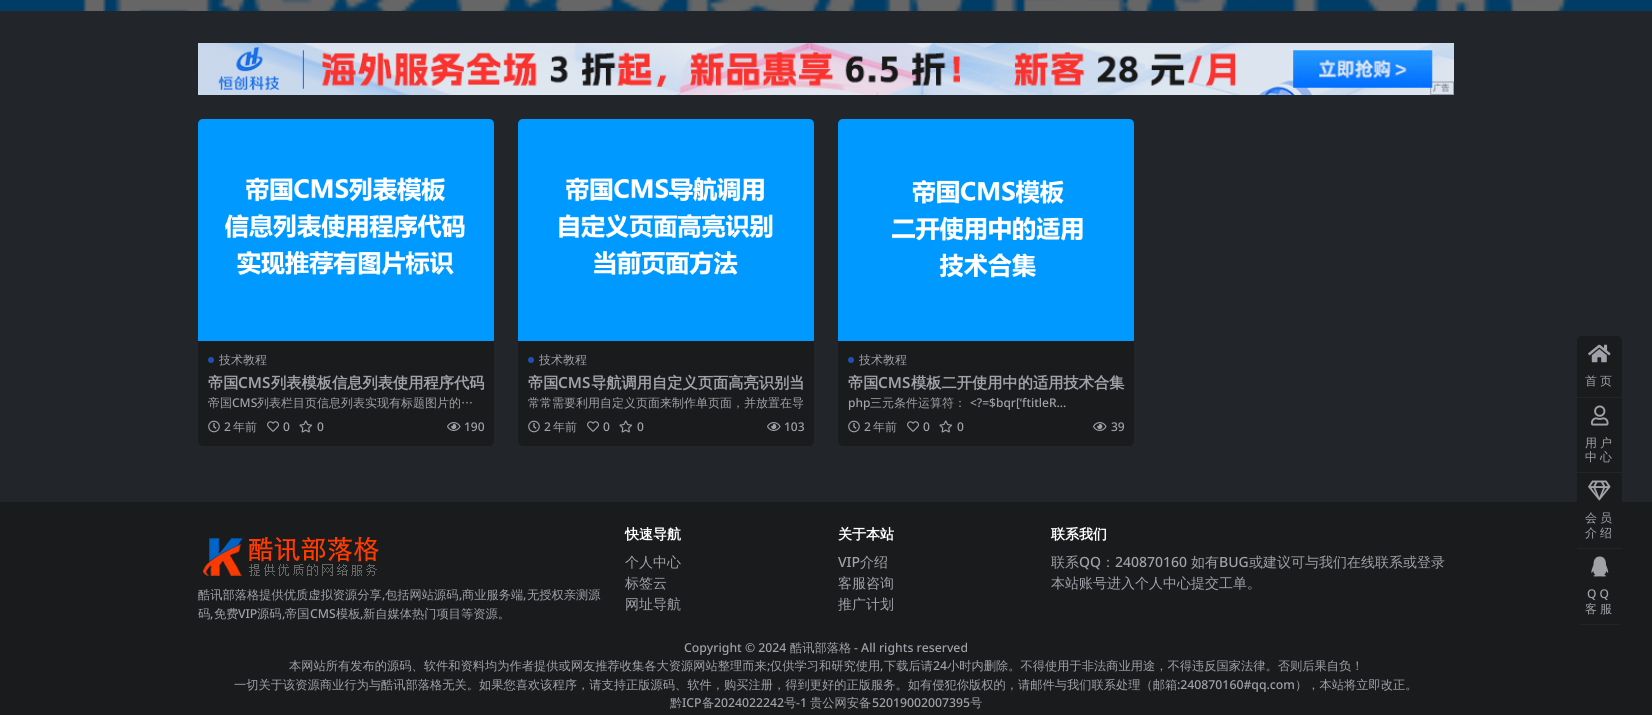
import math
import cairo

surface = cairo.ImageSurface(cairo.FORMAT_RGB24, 1652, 715)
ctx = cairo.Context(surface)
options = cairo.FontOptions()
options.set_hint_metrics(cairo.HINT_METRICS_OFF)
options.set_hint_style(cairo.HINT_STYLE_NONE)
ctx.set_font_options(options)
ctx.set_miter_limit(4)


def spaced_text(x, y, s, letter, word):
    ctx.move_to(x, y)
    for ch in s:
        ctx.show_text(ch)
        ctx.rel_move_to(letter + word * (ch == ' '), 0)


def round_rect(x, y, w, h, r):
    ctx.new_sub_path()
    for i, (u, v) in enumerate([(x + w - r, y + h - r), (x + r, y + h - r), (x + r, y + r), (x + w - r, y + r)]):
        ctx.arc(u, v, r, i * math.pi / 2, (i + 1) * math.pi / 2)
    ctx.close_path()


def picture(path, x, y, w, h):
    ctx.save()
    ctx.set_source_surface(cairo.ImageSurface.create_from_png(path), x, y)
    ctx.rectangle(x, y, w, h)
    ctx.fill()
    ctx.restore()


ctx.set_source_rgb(0.133, 0.145, 0.161)
ctx.paint()
picture("img1.png", 0, 0, 1652, 11)
picture("img2.png", 198, 43, 1256, 52)
ctx.set_source_rgb(0.098, 0.106, 0.114)
round_rect(198, 119, 296, 327, 5)
ctx.fill()
picture("img3.png", 198, 119, 296, 222)
ctx.set_source_rgb(0.122, 0.318, 0.71)
ctx.arc(211, 360, 3, 0, 2 * math.pi)
ctx.fill()
ctx.select_font_face("WenQuanYi Zen Hei Medium")
ctx.set_font_size(12)
ctx.set_source_rgb(0.631, 0.631, 0.659)
ctx.move_to(219, 364)
ctx.show_text("技术教程")
ctx.select_font_face("WenQuanYi Zen Hei", cairo.FONT_SLANT_NORMAL, cairo.FONT_WEIGHT_BOLD)
ctx.set_font_size(15.25)
ctx.move_to(208, 388)
ctx.show_text("帝国")
ctx.select_font_face("Noto Sans SemiBold")
ctx.move_to(238, 388)
ctx.show_text("CMS")
ctx.select_font_face("WenQuanYi Zen Hei", cairo.FONT_SLANT_NORMAL, cairo.FONT_WEIGHT_BOLD)
ctx.move_to(271, 388)
ctx.show_text("列表模板信息列表使用程序代码")
ctx.select_font_face("WenQuanYi Zen Hei Medium")
ctx.set_font_size(12)
ctx.move_to(208, 407)
ctx.show_text("帝国")
ctx.select_font_face("Noto Sans Medium")
ctx.move_to(232, 407)
ctx.show_text("CMS")
ctx.select_font_face("WenQuanYi Zen Hei Medium")
ctx.move_to(257, 407)
ctx.show_text("列表栏目页信息列表实现有标题图片的…")
picture("img4.png", 208, 420, 12, 13)
ctx.select_font_face("Noto Sans Medium")
ctx.move_to(224, 431)
ctx.show_text("2")
ctx.select_font_face("WenQuanYi Zen Hei Medium")
ctx.move_to(233, 431)
ctx.show_text("年前")
picture("img5.png", 267, 421, 12, 11)
ctx.select_font_face("Noto Sans Medium")
ctx.move_to(283, 431)
ctx.show_text("0")
picture("img6.png", 299, 420, 13, 13)
ctx.move_to(317, 431)
ctx.show_text("0")
picture("img7.png", 447, 422, 14, 9)
ctx.move_to(464, 431)
ctx.show_text("190")
ctx.set_source_rgb(0.098, 0.106, 0.114)
round_rect(518, 119, 296, 327, 5)
ctx.fill()
picture("img8.png", 518, 119, 296, 222)
ctx.set_source_rgb(0.122, 0.318, 0.71)
ctx.arc(531, 360, 3, 0, 2 * math.pi)
ctx.fill()
ctx.select_font_face("WenQuanYi Zen Hei Medium")
ctx.set_source_rgb(0.631, 0.631, 0.659)
ctx.move_to(539, 364)
ctx.show_text("技术教程")
ctx.select_font_face("WenQuanYi Zen Hei", cairo.FONT_SLANT_NORMAL, cairo.FONT_WEIGHT_BOLD)
ctx.set_font_size(15.25)
ctx.move_to(528, 388)
ctx.show_text("帝国")
ctx.select_font_face("Noto Sans SemiBold")
ctx.move_to(558, 388)
ctx.show_text("CMS")
ctx.select_font_face("WenQuanYi Zen Hei", cairo.FONT_SLANT_NORMAL, cairo.FONT_WEIGHT_BOLD)
ctx.move_to(591, 388)
ctx.show_text("导航调用自定义页面高亮识别当")
ctx.select_font_face("WenQuanYi Zen Hei Medium")
ctx.set_font_size(12)
ctx.move_to(528, 407)
ctx.show_text("常常需要利用自定义页面来制作单页面，并放置在导")
picture("img4.png", 528, 420, 12, 13)
ctx.select_font_face("Noto Sans Medium")
ctx.move_to(544, 431)
ctx.show_text("2")
ctx.select_font_face("WenQuanYi Zen Hei Medium")
ctx.move_to(553, 431)
ctx.show_text("年前")
picture("img5.png", 587, 421, 12, 11)
ctx.select_font_face("Noto Sans Medium")
ctx.move_to(603, 431)
ctx.show_text("0")
picture("img6.png", 619, 420, 13, 13)
ctx.move_to(637, 431)
ctx.show_text("0")
picture("img7.png", 767, 422, 14, 9)
ctx.move_to(784, 431)
ctx.show_text("103")
ctx.set_source_rgb(0.098, 0.106, 0.114)
round_rect(838, 119, 296, 327, 5)
ctx.fill()
picture("img9.png", 838, 119, 296, 222)
ctx.set_source_rgb(0.122, 0.318, 0.71)
ctx.arc(851, 360, 3, 0, 2 * math.pi)
ctx.fill()
ctx.select_font_face("WenQuanYi Zen Hei Medium")
ctx.set_source_rgb(0.631, 0.631, 0.659)
ctx.move_to(859, 364)
ctx.show_text("技术教程")
ctx.select_font_face("WenQuanYi Zen Hei", cairo.FONT_SLANT_NORMAL, cairo.FONT_WEIGHT_BOLD)
ctx.set_font_size(15.25)
ctx.move_to(848, 388)
ctx.show_text("帝国")
ctx.select_font_face("Noto Sans SemiBold")
ctx.move_to(878, 388)
ctx.show_text("CMS")
ctx.select_font_face("WenQuanYi Zen Hei", cairo.FONT_SLANT_NORMAL, cairo.FONT_WEIGHT_BOLD)
ctx.move_to(911, 388)
ctx.show_text("模板二开使用中的适用技术合集")
ctx.select_font_face("Noto Sans Medium")
ctx.set_font_size(12)
ctx.move_to(848, 407)
ctx.show_text("php")
ctx.select_font_face("WenQuanYi Zen Hei Medium")
ctx.move_to(870, 407)
ctx.show_text("三元条件运算符：")
ctx.select_font_face("Noto Sans Medium")
ctx.move_to(970, 407)
ctx.show_text("<?=$bqr[‘ftitleR...")
picture("img4.png", 848, 420, 12, 13)
ctx.move_to(864, 431)
ctx.show_text("2")
ctx.select_font_face("WenQuanYi Zen Hei Medium")
ctx.move_to(873, 431)
ctx.show_text("年前")
picture("img5.png", 907, 421, 12, 11)
ctx.select_font_face("Noto Sans Medium")
ctx.move_to(923, 431)
ctx.show_text("0")
picture("img6.png", 939, 420, 13, 13)
ctx.move_to(957, 431)
ctx.show_text("0")
picture("img7.png", 1093, 422, 14, 9)
ctx.move_to(1111, 431)
ctx.show_text("39")
ctx.set_source_rgb(0.098, 0.106, 0.114)
ctx.new_path()
ctx.move_to(1582, 336)
ctx.line_to(1617, 336)
ctx.curve_to(1620, 336, 1622, 338, 1622, 341)
ctx.line_to(1622, 398)
ctx.line_to(1577, 398)
ctx.line_to(1577, 341)
ctx.curve_to(1577, 338, 1579, 336, 1582, 336)
ctx.close_path()
ctx.fill()
ctx.set_source_rgb(0.133, 0.145, 0.161)
ctx.rectangle(1577, 397, 45, 1)
ctx.fill()
picture("img10.png", 1588, 344, 23, 19)
ctx.select_font_face("WenQuanYi Zen Hei Medium")
ctx.set_source_rgb(0.631, 0.631, 0.659)
spaced_text(1585, 385, "首页", 3, 0)
ctx.set_source_rgb(0.098, 0.106, 0.114)
ctx.rectangle(1577, 398, 45, 74)
ctx.fill()
picture("img11.png", 1591, 405, 18, 21)
ctx.set_source_rgb(0.631, 0.631, 0.659)
spaced_text(1585, 447, "用户", 3, 0)
spaced_text(1585, 461, "中心", 3, 0)
ctx.set_source_rgb(0.098, 0.106, 0.114)
ctx.rectangle(1577, 473, 45, 29)
ctx.fill()
ctx.rectangle(0, 502, 1652, 213)
ctx.fill()
ctx.set_source_rgb(0.133, 0.145, 0.161)
ctx.rectangle(1577, 548, 45, 1)
ctx.fill()
picture("img12.png", 1588, 480, 23, 21)
ctx.set_source_rgb(0.631, 0.631, 0.659)
spaced_text(1585, 522, "会员", 3, 0)
spaced_text(1585, 537, "介绍", 3, 0)
ctx.save()
round_rect(1577, 336, 45, 289, 5)
ctx.clip()
ctx.set_source_rgb(0.133, 0.145, 0.161)
ctx.rectangle(1577, 624, 45, 1)
ctx.fill()
ctx.restore()
picture("img13.png", 1591, 556, 18, 21)
ctx.select_font_face("Noto Sans Medium")
spaced_text(1587, 598, "QQ", 3, 0)
ctx.select_font_face("WenQuanYi Zen Hei Medium")
spaced_text(1585, 613, "客服", 3, 0)
ctx.select_font_face("WenQuanYi Zen Hei", cairo.FONT_SLANT_NORMAL, cairo.FONT_WEIGHT_BOLD)
ctx.set_font_size(14)
ctx.set_source_rgb(1, 1, 1)
ctx.move_to(625, 539)
ctx.show_text("快速导航")
ctx.select_font_face("WenQuanYi Zen Hei Medium")
ctx.set_source_rgb(0.631, 0.631, 0.659)
ctx.move_to(625, 567)
ctx.show_text("个人中心")
ctx.move_to(625, 588)
ctx.show_text("标签云")
ctx.move_to(625, 609)
ctx.show_text("网址导航")
ctx.select_font_face("WenQuanYi Zen Hei", cairo.FONT_SLANT_NORMAL, cairo.FONT_WEIGHT_BOLD)
ctx.set_source_rgb(1, 1, 1)
ctx.move_to(838, 539)
ctx.show_text("关于本站")
ctx.select_font_face("Noto Sans Medium")
ctx.set_source_rgb(0.631, 0.631, 0.659)
ctx.move_to(838, 567)
ctx.show_text("VIP")
ctx.select_font_face("WenQuanYi Zen Hei Medium")
ctx.move_to(860, 567)
ctx.show_text("介绍")
ctx.move_to(838, 588)
ctx.show_text("客服咨询")
ctx.move_to(838, 609)
ctx.show_text("推广计划")
ctx.select_font_face("WenQuanYi Zen Hei", cairo.FONT_SLANT_NORMAL, cairo.FONT_WEIGHT_BOLD)
ctx.set_source_rgb(1, 1, 1)
ctx.move_to(1051, 539)
ctx.show_text("联系我们")
ctx.select_font_face("WenQuanYi Zen Hei Medium")
ctx.set_source_rgb(0.631, 0.631, 0.659)
ctx.move_to(1051, 567)
ctx.show_text("联系")
ctx.select_font_face("Noto Sans Medium")
ctx.move_to(1079, 567)
ctx.show_text("QQ")
ctx.select_font_face("WenQuanYi Zen Hei Medium")
ctx.move_to(1101, 567)
ctx.show_text("：")
ctx.select_font_face("Noto Sans Medium")
ctx.move_to(1115, 567)
ctx.show_text("240870160")
ctx.select_font_face("WenQuanYi Zen Hei Medium")
ctx.move_to(1191, 567)
ctx.show_text("如有")
ctx.select_font_face("Noto Sans Medium")
ctx.move_to(1219, 567)
ctx.show_text("BUG")
ctx.select_font_face("WenQuanYi Zen Hei Medium")
ctx.move_to(1249, 567)
ctx.show_text("或建议可与我们在线联系或登录")
ctx.move_to(1051, 588)
ctx.show_text("本站账号进入个人中心提交工单。")
picture("img14.png", 203, 536, 176, 40)
ctx.set_font_size(12.25)
ctx.move_to(198, 599)
ctx.show_text("酷讯部落格提供优质虚拟资源分享")
ctx.select_font_face("Noto Sans Medium")
ctx.move_to(382, 599)
ctx.show_text(",")
ctx.select_font_face("WenQuanYi Zen Hei Medium")
ctx.move_to(385, 599)
ctx.show_text("包括网站源码")
ctx.select_font_face("Noto Sans Medium")
ctx.move_to(459, 599)
ctx.show_text(",")
ctx.select_font_face("WenQuanYi Zen Hei Medium")
ctx.move_to(462, 599)
ctx.show_text("商业服务端")
ctx.select_font_face("Noto Sans Medium")
ctx.move_to(523, 599)
ctx.show_text(",")
ctx.select_font_face("WenQuanYi Zen Hei Medium")
ctx.move_to(527, 599)
ctx.show_text("无授权亲测源")
ctx.move_to(198, 618)
ctx.show_text("码")
ctx.select_font_face("Noto Sans Medium")
ctx.move_to(210, 618)
ctx.show_text(",")
ctx.select_font_face("WenQuanYi Zen Hei Medium")
ctx.move_to(214, 618)
ctx.show_text("免费")
ctx.select_font_face("Noto Sans Medium")
ctx.move_to(238, 618)
ctx.show_text("VIP")
ctx.select_font_face("WenQuanYi Zen Hei Medium")
ctx.move_to(257, 618)
ctx.show_text("源码")
ctx.select_font_face("Noto Sans Medium")
ctx.move_to(282, 618)
ctx.show_text(",")
ctx.select_font_face("WenQuanYi Zen Hei Medium")
ctx.move_to(285, 618)
ctx.show_text("帝国")
ctx.select_font_face("Noto Sans Medium")
ctx.move_to(310, 618)
ctx.show_text("CMS")
ctx.select_font_face("WenQuanYi Zen Hei Medium")
ctx.move_to(336, 618)
ctx.show_text("模板")
ctx.select_font_face("Noto Sans Medium")
ctx.move_to(360, 618)
ctx.show_text(",")
ctx.select_font_face("WenQuanYi Zen Hei Medium")
ctx.move_to(363, 618)
ctx.show_text("新自媒体热门项目等资源。")
ctx.select_font_face("Noto Sans Medium")
ctx.move_to(684, 652)
ctx.show_text("Copyright © 2024")
ctx.select_font_face("WenQuanYi Zen Hei Medium")
ctx.move_to(790, 652)
ctx.show_text("酷讯部落格")
ctx.select_font_face("Noto Sans Medium")
ctx.move_to(854, 652)
ctx.show_text("- All rights reserved")
ctx.select_font_face("WenQuanYi Zen Hei Medium")
ctx.move_to(289, 670)
ctx.show_text("本网站所有发布的源码、软件和资料均为作者提供或网友推荐收集各大资源网站整理而来")
ctx.select_font_face("Noto Sans Medium")
ctx.move_to(767, 670)
ctx.show_text(";")
ctx.select_font_face("WenQuanYi Zen Hei Medium")
ctx.move_to(770, 670)
ctx.show_text("仅供学习和研究使用")
ctx.select_font_face("Noto Sans Medium")
ctx.move_to(880, 670)
ctx.show_text(",")
ctx.select_font_face("WenQuanYi Zen Hei Medium")
ctx.move_to(884, 670)
ctx.show_text("下载后请")
ctx.select_font_face("Noto Sans Medium")
ctx.move_to(933, 670)
ctx.show_text("24")
ctx.select_font_face("WenQuanYi Zen Hei Medium")
ctx.move_to(947, 670)
ctx.show_text("小时内删除。不得使用于非法商业用途，不得违反国家法律。否则后果自负！")
ctx.move_to(234, 689)
ctx.show_text("一切关于该资源商业行为与酷讯部落格无关。如果您喜欢该程序，请支持正版源码、软件，购买注册，得到更好的正版服务。如有侵犯你版权的，请邮件与我们联系处理（邮箱")
ctx.select_font_face("Noto Sans Medium")
ctx.move_to(1177, 689)
ctx.show_text(":240870160#qq.com")
ctx.select_font_face("WenQuanYi Zen Hei Medium")
ctx.move_to(1295, 689)
ctx.show_text("），本站将立即改正。")
ctx.move_to(670, 707)
ctx.show_text("黔")
ctx.select_font_face("Noto Sans Medium")
ctx.move_to(682, 707)
ctx.show_text("ICP")
ctx.select_font_face("WenQuanYi Zen Hei Medium")
ctx.move_to(702, 707)
ctx.show_text("备")
ctx.select_font_face("Noto Sans Medium")
ctx.move_to(714, 707)
ctx.show_text("2024022242")
ctx.select_font_face("WenQuanYi Zen Hei Medium")
ctx.move_to(784, 707)
ctx.show_text("号")
ctx.select_font_face("Noto Sans Medium")
ctx.move_to(796, 707)
ctx.show_text("-1")
ctx.select_font_face("WenQuanYi Zen Hei Medium")
ctx.move_to(810, 707)
ctx.show_text("贵公网安备")
ctx.select_font_face("Noto Sans Medium")
ctx.move_to(872, 707)
ctx.show_text("52019002007395")
ctx.select_font_face("WenQuanYi Zen Hei Medium")
ctx.move_to(970, 707)
ctx.show_text("号")
surface.write_to_png("page.png")
